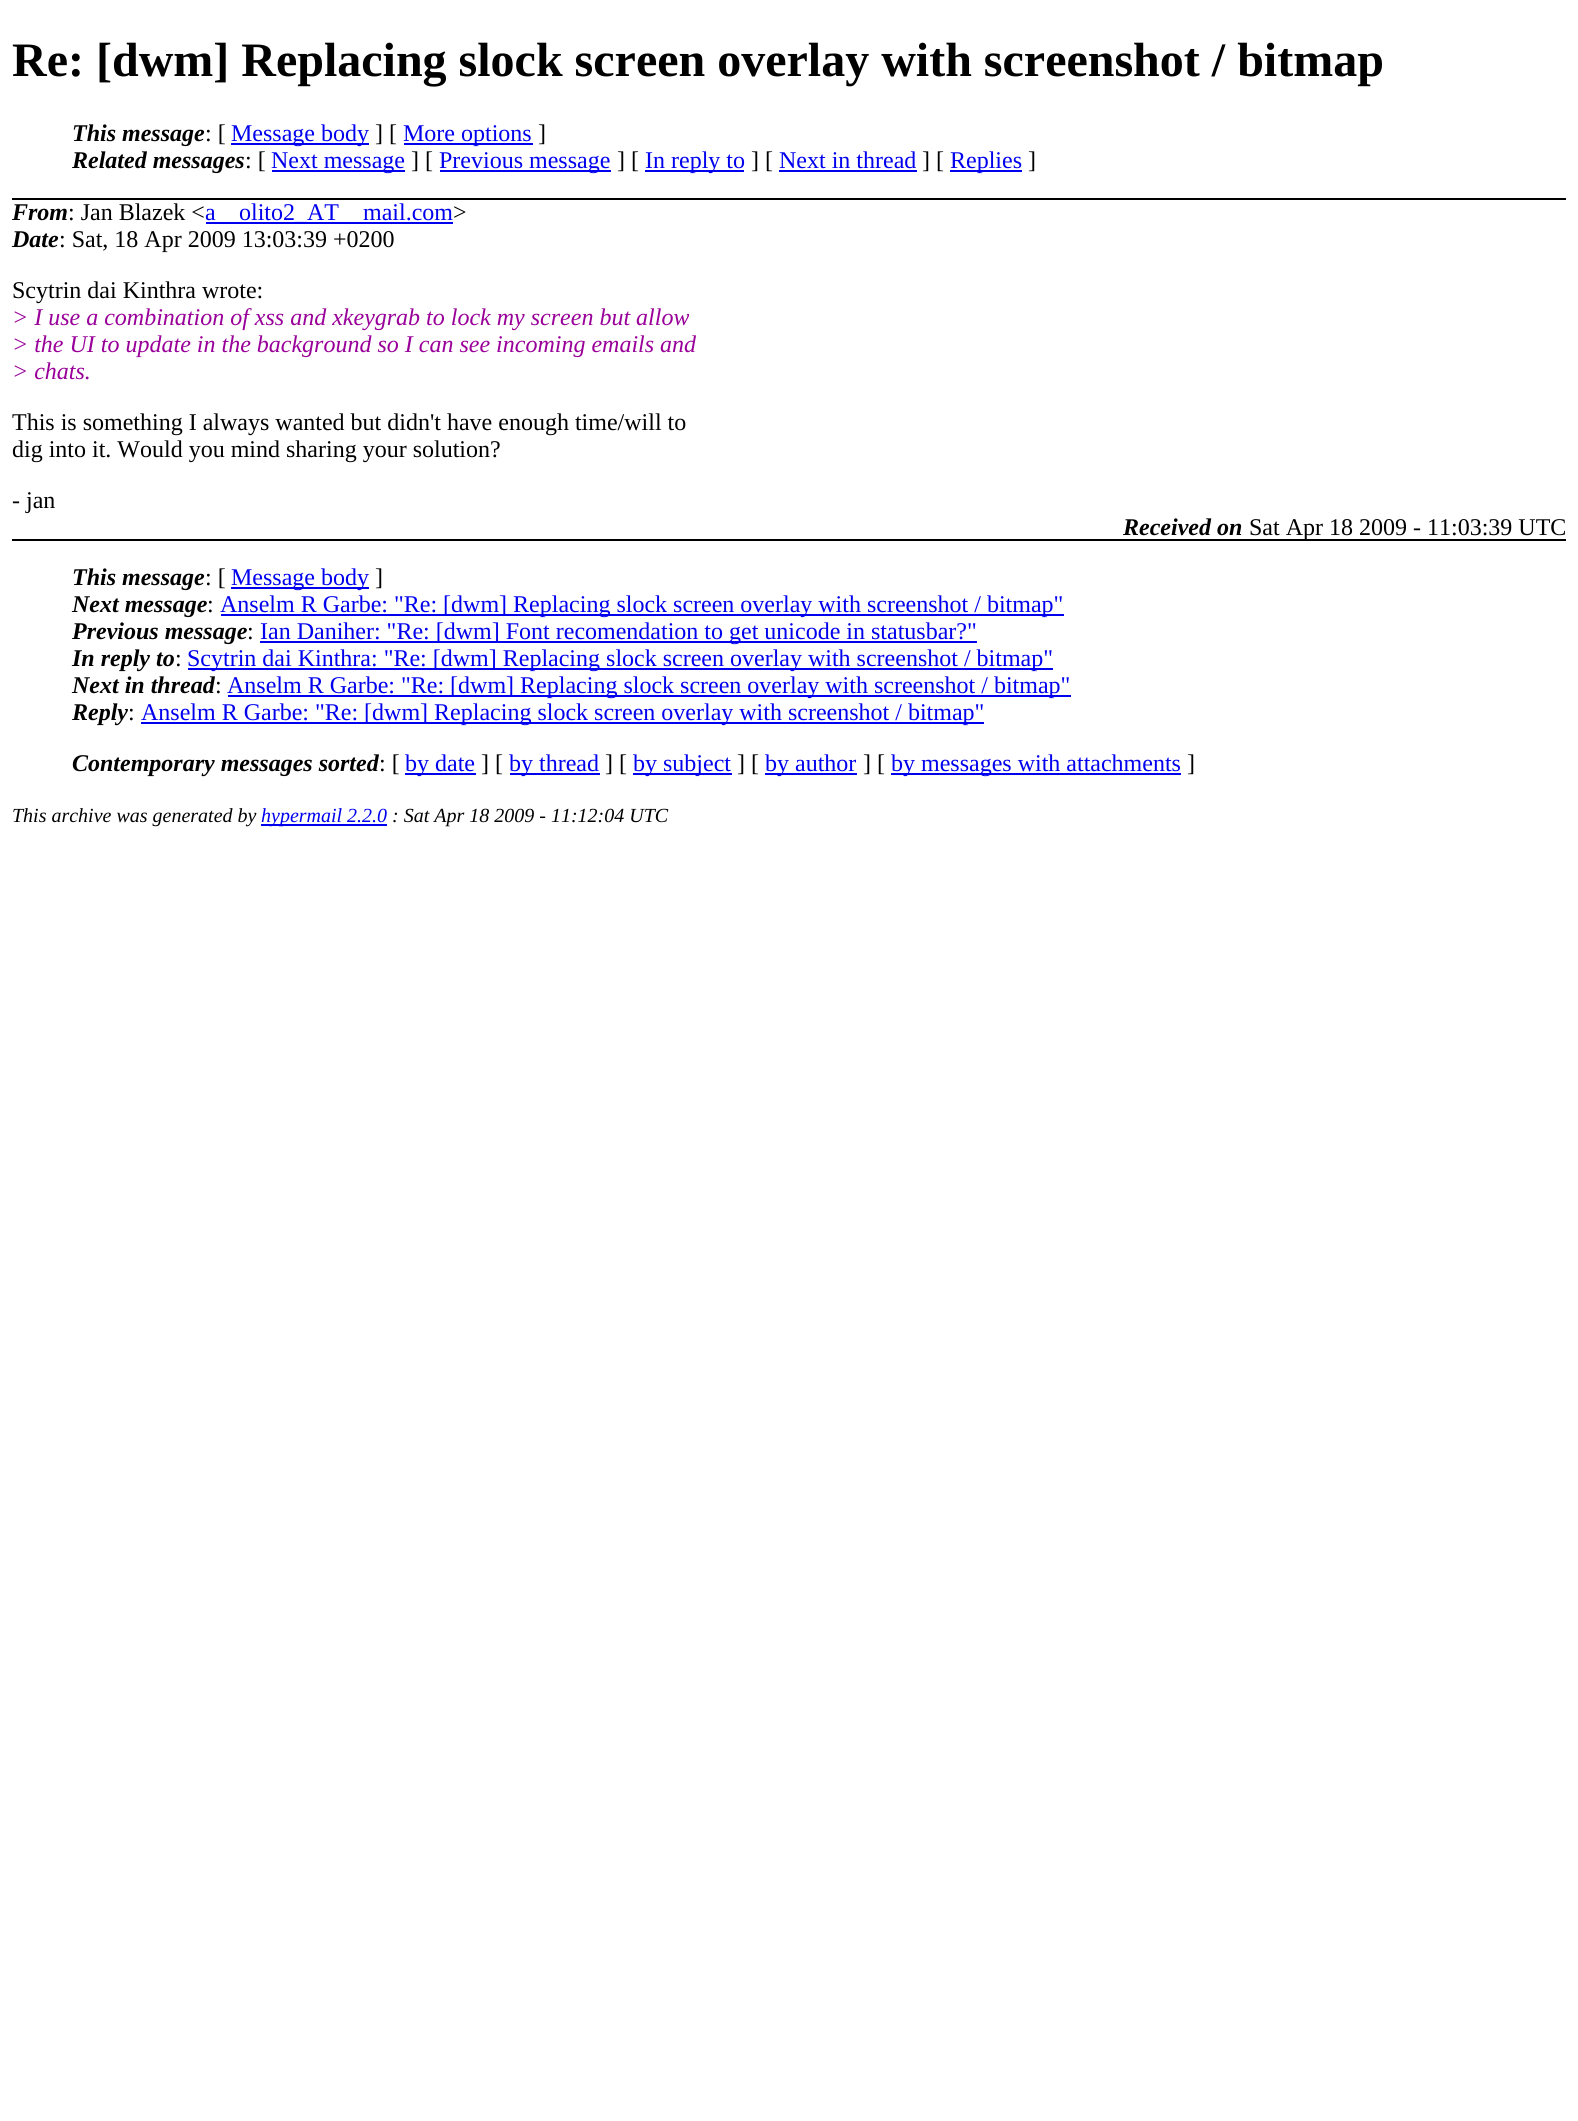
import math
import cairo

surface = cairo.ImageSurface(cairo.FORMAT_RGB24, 1578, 2121)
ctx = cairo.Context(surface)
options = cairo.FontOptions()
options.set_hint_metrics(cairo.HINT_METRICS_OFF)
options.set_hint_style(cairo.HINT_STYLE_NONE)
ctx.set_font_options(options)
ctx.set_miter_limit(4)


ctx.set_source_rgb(1, 1, 1)
ctx.paint()
ctx.set_source_rgb(0, 0, 0)
ctx.rectangle(12, 198, 1554, 2)
ctx.fill()
ctx.select_font_face("Liberation Serif", cairo.FONT_SLANT_NORMAL, cairo.FONT_WEIGHT_BOLD)
ctx.set_font_size(48)
ctx.move_to(12, 76)
ctx.show_text("Re: [dwm] Replacing slock screen overlay with screenshot / bitmap")
ctx.select_font_face("Liberation Serif", cairo.FONT_SLANT_ITALIC, cairo.FONT_WEIGHT_BOLD)
ctx.set_font_size(24)
ctx.move_to(72, 141)
ctx.show_text("This message")
ctx.select_font_face("Liberation Serif")
ctx.move_to(205, 141)
ctx.show_text(": [")
ctx.set_source_rgb(0, 0, 0.933)
ctx.rectangle(231, 143, 138, 2)
ctx.fill()
ctx.move_to(231, 141)
ctx.show_text("Message body")
ctx.set_source_rgb(0, 0, 0)
ctx.move_to(375, 141)
ctx.show_text("] [")
ctx.set_source_rgb(0, 0, 0.933)
ctx.rectangle(404, 143, 129, 2)
ctx.fill()
ctx.move_to(403, 141)
ctx.show_text("More options")
ctx.set_source_rgb(0, 0, 0)
ctx.move_to(538, 141)
ctx.show_text("]")
ctx.select_font_face("Liberation Serif", cairo.FONT_SLANT_ITALIC, cairo.FONT_WEIGHT_BOLD)
ctx.move_to(72, 168)
ctx.show_text("Related messages")
ctx.select_font_face("Liberation Serif")
ctx.move_to(245, 168)
ctx.show_text(": [")
ctx.set_source_rgb(0, 0, 0.933)
ctx.rectangle(272, 170, 133, 2)
ctx.fill()
ctx.move_to(271, 168)
ctx.show_text("Next message")
ctx.set_source_rgb(0, 0, 0)
ctx.move_to(411, 168)
ctx.show_text("] [")
ctx.set_source_rgb(0, 0, 0.933)
ctx.rectangle(440, 170, 171, 2)
ctx.fill()
ctx.move_to(439, 168)
ctx.show_text("Previous message")
ctx.set_source_rgb(0, 0, 0)
ctx.move_to(617, 168)
ctx.show_text("] [")
ctx.set_source_rgb(0, 0, 0.933)
ctx.rectangle(645, 170, 99, 2)
ctx.fill()
ctx.move_to(645, 168)
ctx.show_text("In reply to")
ctx.set_source_rgb(0, 0, 0)
ctx.move_to(751, 168)
ctx.show_text("] [")
ctx.set_source_rgb(0, 0, 0.933)
ctx.move_to(779, 168)
ctx.show_text("Next in thread")
ctx.rectangle(779, 170, 138, 2)
ctx.fill()
ctx.set_source_rgb(0, 0, 0)
ctx.move_to(922, 168)
ctx.show_text("] [")
ctx.set_source_rgb(0, 0, 0.933)
ctx.rectangle(950, 170, 72, 2)
ctx.fill()
ctx.move_to(950, 168)
ctx.show_text("Replies")
ctx.set_source_rgb(0, 0, 0)
ctx.move_to(1028, 168)
ctx.show_text("]")
ctx.select_font_face("Liberation Serif", cairo.FONT_SLANT_ITALIC, cairo.FONT_WEIGHT_BOLD)
ctx.move_to(12, 220)
ctx.show_text("From")
ctx.select_font_face("Liberation Serif")
ctx.move_to(68, 220)
ctx.show_text(": Jan Blazek <")
ctx.set_source_rgb(0, 0, 0.933)
ctx.move_to(205, 220)
ctx.show_text("a")
ctx.rectangle(206, 222, 247, 2)
ctx.fill()
ctx.move_to(239, 220)
ctx.show_text("olito2_AT")
ctx.move_to(363, 220)
ctx.show_text("mail.com")
ctx.set_source_rgb(0, 0, 0)
ctx.move_to(453, 220)
ctx.show_text(">")
ctx.select_font_face("Liberation Serif", cairo.FONT_SLANT_ITALIC, cairo.FONT_WEIGHT_BOLD)
ctx.move_to(12, 247)
ctx.show_text("Date")
ctx.select_font_face("Liberation Serif")
ctx.move_to(59, 247)
ctx.show_text(": Sat, 18 Apr 2009 13:03:39 +0200")
ctx.move_to(12, 298)
ctx.show_text("Scytrin dai Kinthra wrote:")
ctx.select_font_face("Liberation Serif", cairo.FONT_SLANT_ITALIC)
ctx.set_source_rgb(0.6, 0, 0.6)
ctx.move_to(12, 325)
ctx.show_text("> I use a combination of xss and xkeygrab to lock my screen but allow")
ctx.move_to(12, 352)
ctx.show_text("> the UI to update in the background so I can see incoming emails and")
ctx.move_to(12, 379)
ctx.show_text("> chats.")
ctx.select_font_face("Liberation Serif")
ctx.set_source_rgb(0, 0, 0)
ctx.move_to(12, 430)
ctx.show_text("This is something I always wanted but didn't have enough time/will to")
ctx.move_to(12, 457)
ctx.show_text("dig into it. Would you mind sharing your solution?")
ctx.move_to(12, 508)
ctx.show_text("- jan")
ctx.select_font_face("Liberation Serif", cairo.FONT_SLANT_ITALIC, cairo.FONT_WEIGHT_BOLD)
ctx.move_to(1123, 535)
ctx.show_text("Received on")
ctx.rectangle(12, 539, 1554, 2)
ctx.fill()
ctx.select_font_face("Liberation Serif")
ctx.move_to(1249, 535)
ctx.show_text("Sat Apr 18 2009 - 11:03:39 UTC")
ctx.select_font_face("Liberation Serif", cairo.FONT_SLANT_ITALIC, cairo.FONT_WEIGHT_BOLD)
ctx.move_to(72, 585)
ctx.show_text("This message")
ctx.select_font_face("Liberation Serif")
ctx.move_to(205, 585)
ctx.show_text(": [")
ctx.set_source_rgb(0, 0, 0.933)
ctx.rectangle(231, 587, 138, 2)
ctx.fill()
ctx.move_to(231, 585)
ctx.show_text("Message body")
ctx.set_source_rgb(0, 0, 0)
ctx.move_to(375, 585)
ctx.show_text("]")
ctx.select_font_face("Liberation Serif", cairo.FONT_SLANT_ITALIC, cairo.FONT_WEIGHT_BOLD)
ctx.move_to(72, 612)
ctx.show_text("Next message")
ctx.select_font_face("Liberation Serif")
ctx.move_to(207, 612)
ctx.show_text(":")
ctx.set_source_rgb(0, 0, 0.933)
ctx.rectangle(221, 614, 843, 2)
ctx.fill()
ctx.move_to(220, 612)
ctx.show_text("Anselm R Garbe: \"Re: [dwm] Replacing slock screen overlay with screenshot / bitmap\"")
ctx.select_font_face("Liberation Serif", cairo.FONT_SLANT_ITALIC, cairo.FONT_WEIGHT_BOLD)
ctx.set_source_rgb(0, 0, 0)
ctx.move_to(72, 639)
ctx.show_text("Previous message")
ctx.select_font_face("Liberation Serif")
ctx.move_to(247, 639)
ctx.show_text(":")
ctx.set_source_rgb(0, 0, 0.933)
ctx.rectangle(260, 641, 717, 2)
ctx.fill()
ctx.move_to(260, 639)
ctx.show_text("Ian Daniher: \"Re: [dwm] Font recomendation to get unicode in statusbar?\"")
ctx.select_font_face("Liberation Serif", cairo.FONT_SLANT_ITALIC, cairo.FONT_WEIGHT_BOLD)
ctx.set_source_rgb(0, 0, 0)
ctx.move_to(72, 666)
ctx.show_text("In reply to")
ctx.select_font_face("Liberation Serif")
ctx.move_to(175, 666)
ctx.show_text(":")
ctx.set_source_rgb(0, 0, 0.933)
ctx.rectangle(188, 668, 865, 2)
ctx.fill()
ctx.move_to(187, 666)
ctx.show_text("Scytrin dai Kinthra: \"Re: [dwm] Replacing slock screen overlay with screenshot / bitmap\"")
ctx.select_font_face("Liberation Serif", cairo.FONT_SLANT_ITALIC, cairo.FONT_WEIGHT_BOLD)
ctx.set_source_rgb(0, 0, 0)
ctx.move_to(72, 693)
ctx.show_text("Next in thread")
ctx.select_font_face("Liberation Serif")
ctx.move_to(215, 693)
ctx.show_text(":")
ctx.set_source_rgb(0, 0, 0.933)
ctx.rectangle(228, 695, 843, 2)
ctx.fill()
ctx.move_to(227, 693)
ctx.show_text("Anselm R Garbe: \"Re: [dwm] Replacing slock screen overlay with screenshot / bitmap\"")
ctx.select_font_face("Liberation Serif", cairo.FONT_SLANT_ITALIC, cairo.FONT_WEIGHT_BOLD)
ctx.set_source_rgb(0, 0, 0)
ctx.move_to(72, 720)
ctx.show_text("Reply")
ctx.select_font_face("Liberation Serif")
ctx.move_to(128, 720)
ctx.show_text(":")
ctx.set_source_rgb(0, 0, 0.933)
ctx.rectangle(141, 722, 843, 2)
ctx.fill()
ctx.move_to(141, 720)
ctx.show_text("Anselm R Garbe: \"Re: [dwm] Replacing slock screen overlay with screenshot / bitmap\"")
ctx.select_font_face("Liberation Serif", cairo.FONT_SLANT_ITALIC, cairo.FONT_WEIGHT_BOLD)
ctx.set_source_rgb(0, 0, 0)
ctx.move_to(72, 771)
ctx.show_text("Contemporary messages sorted")
ctx.select_font_face("Liberation Serif")
ctx.move_to(379, 771)
ctx.show_text(": [")
ctx.set_source_rgb(0, 0, 0.933)
ctx.rectangle(405, 773, 71, 2)
ctx.fill()
ctx.move_to(405, 771)
ctx.show_text("by date")
ctx.set_source_rgb(0, 0, 0)
ctx.move_to(481, 771)
ctx.show_text("] [")
ctx.set_source_rgb(0, 0, 0.933)
ctx.rectangle(510, 773, 90, 2)
ctx.fill()
ctx.move_to(509, 771)
ctx.show_text("by thread")
ctx.set_source_rgb(0, 0, 0)
ctx.move_to(605, 771)
ctx.show_text("] [")
ctx.set_source_rgb(0, 0, 0.933)
ctx.rectangle(633, 773, 99, 2)
ctx.fill()
ctx.move_to(633, 771)
ctx.show_text("by subject")
ctx.set_source_rgb(0, 0, 0)
ctx.move_to(737, 771)
ctx.show_text("] [")
ctx.set_source_rgb(0, 0, 0.933)
ctx.rectangle(765, 773, 92, 2)
ctx.fill()
ctx.move_to(765, 771)
ctx.show_text("by author")
ctx.set_source_rgb(0, 0, 0)
ctx.move_to(863, 771)
ctx.show_text("] [")
ctx.set_source_rgb(0, 0, 0.933)
ctx.rectangle(891, 773, 290, 2)
ctx.fill()
ctx.move_to(891, 771)
ctx.show_text("by messages with attachments")
ctx.set_source_rgb(0, 0, 0)
ctx.move_to(1187, 771)
ctx.show_text("]")
ctx.select_font_face("Liberation Serif", cairo.FONT_SLANT_ITALIC)
ctx.set_font_size(20)
ctx.move_to(12, 822)
ctx.show_text("This archive was generated by")
ctx.set_source_rgb(0, 0, 0.933)
ctx.rectangle(261, 824, 126, 2)
ctx.fill()
ctx.move_to(261, 822)
ctx.show_text("hypermail 2.2.0")
ctx.set_source_rgb(0, 0, 0)
ctx.move_to(392, 822)
ctx.show_text(": Sat Apr 18 2009 - 11:12:04 UTC")
surface.write_to_png("page.png")
